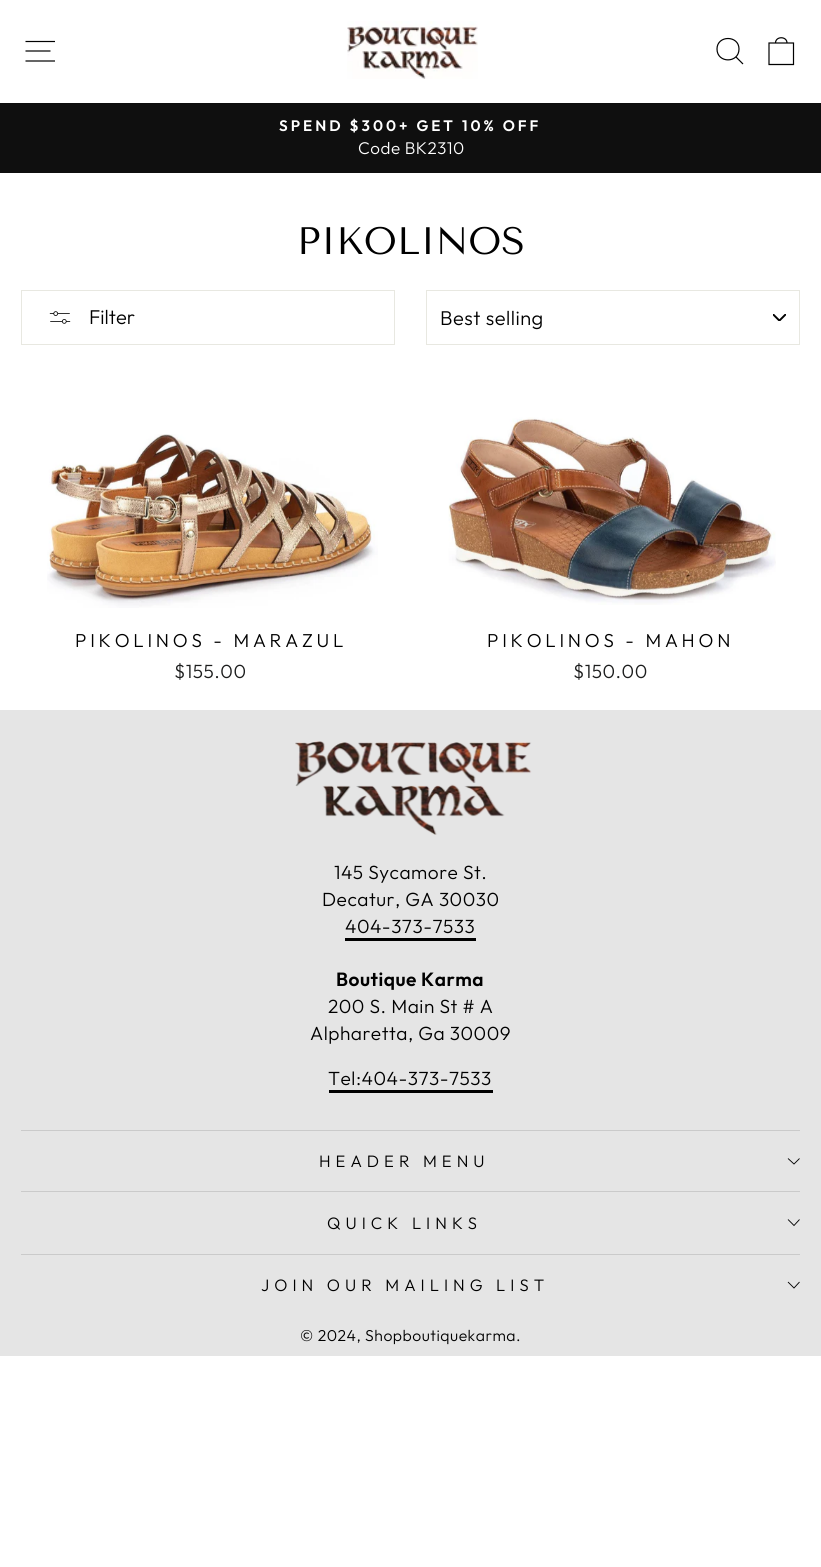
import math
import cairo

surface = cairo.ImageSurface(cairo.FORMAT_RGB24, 821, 1567)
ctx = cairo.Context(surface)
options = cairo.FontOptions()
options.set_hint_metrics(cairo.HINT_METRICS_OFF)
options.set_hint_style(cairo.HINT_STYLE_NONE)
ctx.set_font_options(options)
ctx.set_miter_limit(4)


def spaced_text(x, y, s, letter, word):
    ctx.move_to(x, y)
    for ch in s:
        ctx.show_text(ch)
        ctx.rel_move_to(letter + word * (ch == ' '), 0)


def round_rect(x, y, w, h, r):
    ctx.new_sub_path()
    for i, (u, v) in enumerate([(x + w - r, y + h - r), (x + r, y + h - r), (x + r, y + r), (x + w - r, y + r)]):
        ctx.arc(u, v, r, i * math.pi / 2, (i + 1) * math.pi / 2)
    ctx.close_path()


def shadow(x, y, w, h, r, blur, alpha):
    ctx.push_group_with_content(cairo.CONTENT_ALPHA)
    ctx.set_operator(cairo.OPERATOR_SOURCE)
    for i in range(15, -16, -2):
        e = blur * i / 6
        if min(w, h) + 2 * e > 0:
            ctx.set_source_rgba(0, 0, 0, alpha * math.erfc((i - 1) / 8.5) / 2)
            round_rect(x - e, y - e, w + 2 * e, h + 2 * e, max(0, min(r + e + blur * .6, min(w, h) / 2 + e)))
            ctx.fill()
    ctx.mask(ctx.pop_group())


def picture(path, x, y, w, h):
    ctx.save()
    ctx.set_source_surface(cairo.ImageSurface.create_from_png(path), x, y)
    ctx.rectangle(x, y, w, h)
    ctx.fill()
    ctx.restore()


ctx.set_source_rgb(1, 1, 1)
ctx.paint()
ctx.set_source_rgb(0.059, 0.059, 0.059)
ctx.rectangle(0, 103, 821, 70)
ctx.fill()
ctx.set_source_rgb(0, 0, 0)
shadow(0, 0, 821, 103, 0, 0.5, 0.2)
ctx.set_source_rgb(1, 1, 1)
ctx.rectangle(0, 0, 821, 103)
ctx.fill()
ctx.new_path()
ctx.move_to(25.5, 41.5)
ctx.line_to(55, 41.5)
ctx.move_to(25.5, 51)
ctx.line_to(50.5, 51)
ctx.move_to(25.5, 61)
ctx.line_to(55, 61)
ctx.set_source_rgb(0, 0, 0)
ctx.set_line_width(1.2)
ctx.stroke()
picture("img1.png", 347, 21, 131, 58)
ctx.new_path()
ctx.move_to(739, 49)
ctx.curve_to(739, 63.5, 717, 63.5, 717, 49)
ctx.curve_to(717, 35, 739, 35, 739, 49)
ctx.close_path()
ctx.move_to(743, 64)
ctx.line_to(736, 57)
ctx.stroke()
ctx.new_path()
ctx.move_to(769, 43)
ctx.line_to(793.5, 43)
ctx.line_to(793.5, 64.5)
ctx.line_to(769, 64.5)
ctx.close_path()
ctx.move_to(775.5, 43)
ctx.curve_to(775.5, 36, 787, 36, 787, 43)
ctx.stroke()
ctx.select_font_face("Outfit SemiBold")
ctx.set_font_size(15.2)
ctx.set_source_rgb(1, 1, 1)
spaced_text(279, 131, "SPEND $300+ GET 10% OFF", 3, 0)
ctx.select_font_face("Outfit Light")
ctx.set_font_size(17)
spaced_text(358, 154, "Code BK2310", 0.5, 0)
ctx.select_font_face("Tenor Sans")
ctx.set_font_size(38.25)
ctx.set_source_rgb(0, 0, 0)
ctx.move_to(297, 254)
ctx.show_text("PIKOLINOS")
ctx.rectangle(21.5, 290.5, 373, 54)
ctx.set_source_rgb(0.91, 0.91, 0.882)
ctx.set_line_width(1)
ctx.stroke()
picture("img2.png", 49, 311, 22, 13)
ctx.select_font_face("Outfit Light")
ctx.set_font_size(20)
ctx.set_source_rgb(0, 0, 0)
ctx.move_to(89, 324)
ctx.show_text("Filter")
picture("img3.png", 773, 314, 13, 7)
ctx.rectangle(426.5, 290.5, 373, 54)
ctx.set_source_rgb(0.91, 0.91, 0.882)
ctx.stroke()
ctx.set_source_rgb(0, 0, 0)
spaced_text(440, 325, "Best selling", 0.5, 0)
picture("img4.png", 47, 434, 331, 174)
ctx.set_font_size(18.75)
spaced_text(75, 647, "PIKOLINOS - MARAZUL", 3.75, 0)
ctx.set_font_size(19.1)
ctx.set_source_rgb(0.11, 0.114, 0.114)
spaced_text(174, 678, "$155.00", 0.5, 0)
picture("img5.png", 448, 417, 328, 188)
ctx.set_font_size(18.75)
ctx.set_source_rgb(0, 0, 0)
spaced_text(487, 647, "PIKOLINOS - MAHON", 3.75, 0)
ctx.set_font_size(19.1)
ctx.set_source_rgb(0.11, 0.114, 0.114)
spaced_text(573, 678, "$150.00", 0.5, 0)
ctx.set_source_rgb(0.898, 0.898, 0.898)
ctx.rectangle(0, 710, 821, 646)
ctx.fill()
picture("img6.png", 295, 741, 237, 94)
ctx.set_source_rgb(0, 0, 0)
spaced_text(334, 879, "145 Sycamore St.", 0.5, 0)
spaced_text(322, 906, "Decatur, GA 30030", 0.5, 0)
spaced_text(345, 933, "404-373-7533", 0.5, 0)
ctx.rectangle(345, 938, 131, 3)
ctx.fill()
ctx.select_font_face("Outfit SemiBold")
spaced_text(336, 986, "Boutique Karma", 0.5, 0)
ctx.select_font_face("Outfit Light")
spaced_text(328, 1013, "200 S. Main St # A", 0.5, 0)
spaced_text(310, 1040, "Alpharetta, Ga 30009", 0.5, 0)
spaced_text(328, 1085, "Tel:404-373-7533", 0.5, 0)
ctx.rectangle(329, 1090, 164, 3)
ctx.fill()
ctx.set_source_rgb(0.792, 0.792, 0.792)
ctx.rectangle(21, 1130, 779, 1)
ctx.fill()
ctx.set_font_size(16.6)
ctx.set_source_rgb(0, 0, 0)
spaced_text(319, 1167, "HEADER MENU", 5, 0)
ctx.new_path()
ctx.move_to(788, 1158.5)
ctx.line_to(794, 1164)
ctx.line_to(799.5, 1158.5)
ctx.set_line_width(0.9)
ctx.stroke()
ctx.set_source_rgb(0.792, 0.792, 0.792)
ctx.rectangle(21, 1191, 779, 1)
ctx.fill()
ctx.set_source_rgb(0, 0, 0)
spaced_text(327, 1229, "QUICK LINKS", 5, 0)
ctx.new_path()
ctx.move_to(788, 1219.5)
ctx.line_to(794, 1225.5)
ctx.line_to(799.5, 1219.5)
ctx.stroke()
ctx.set_source_rgb(0.792, 0.792, 0.792)
ctx.rectangle(21, 1254, 779, 1)
ctx.fill()
ctx.set_source_rgb(0, 0, 0)
spaced_text(261, 1291, "JOIN OUR MAILING LIST", 5, 0)
ctx.new_path()
ctx.move_to(788, 1282)
ctx.line_to(794, 1288)
ctx.line_to(799.5, 1282)
ctx.stroke()
ctx.set_font_size(15.75)
spaced_text(300, 1341, "© 2024, Shopboutiquekarma.", 0.5, 0)
surface.write_to_png("page.png")
